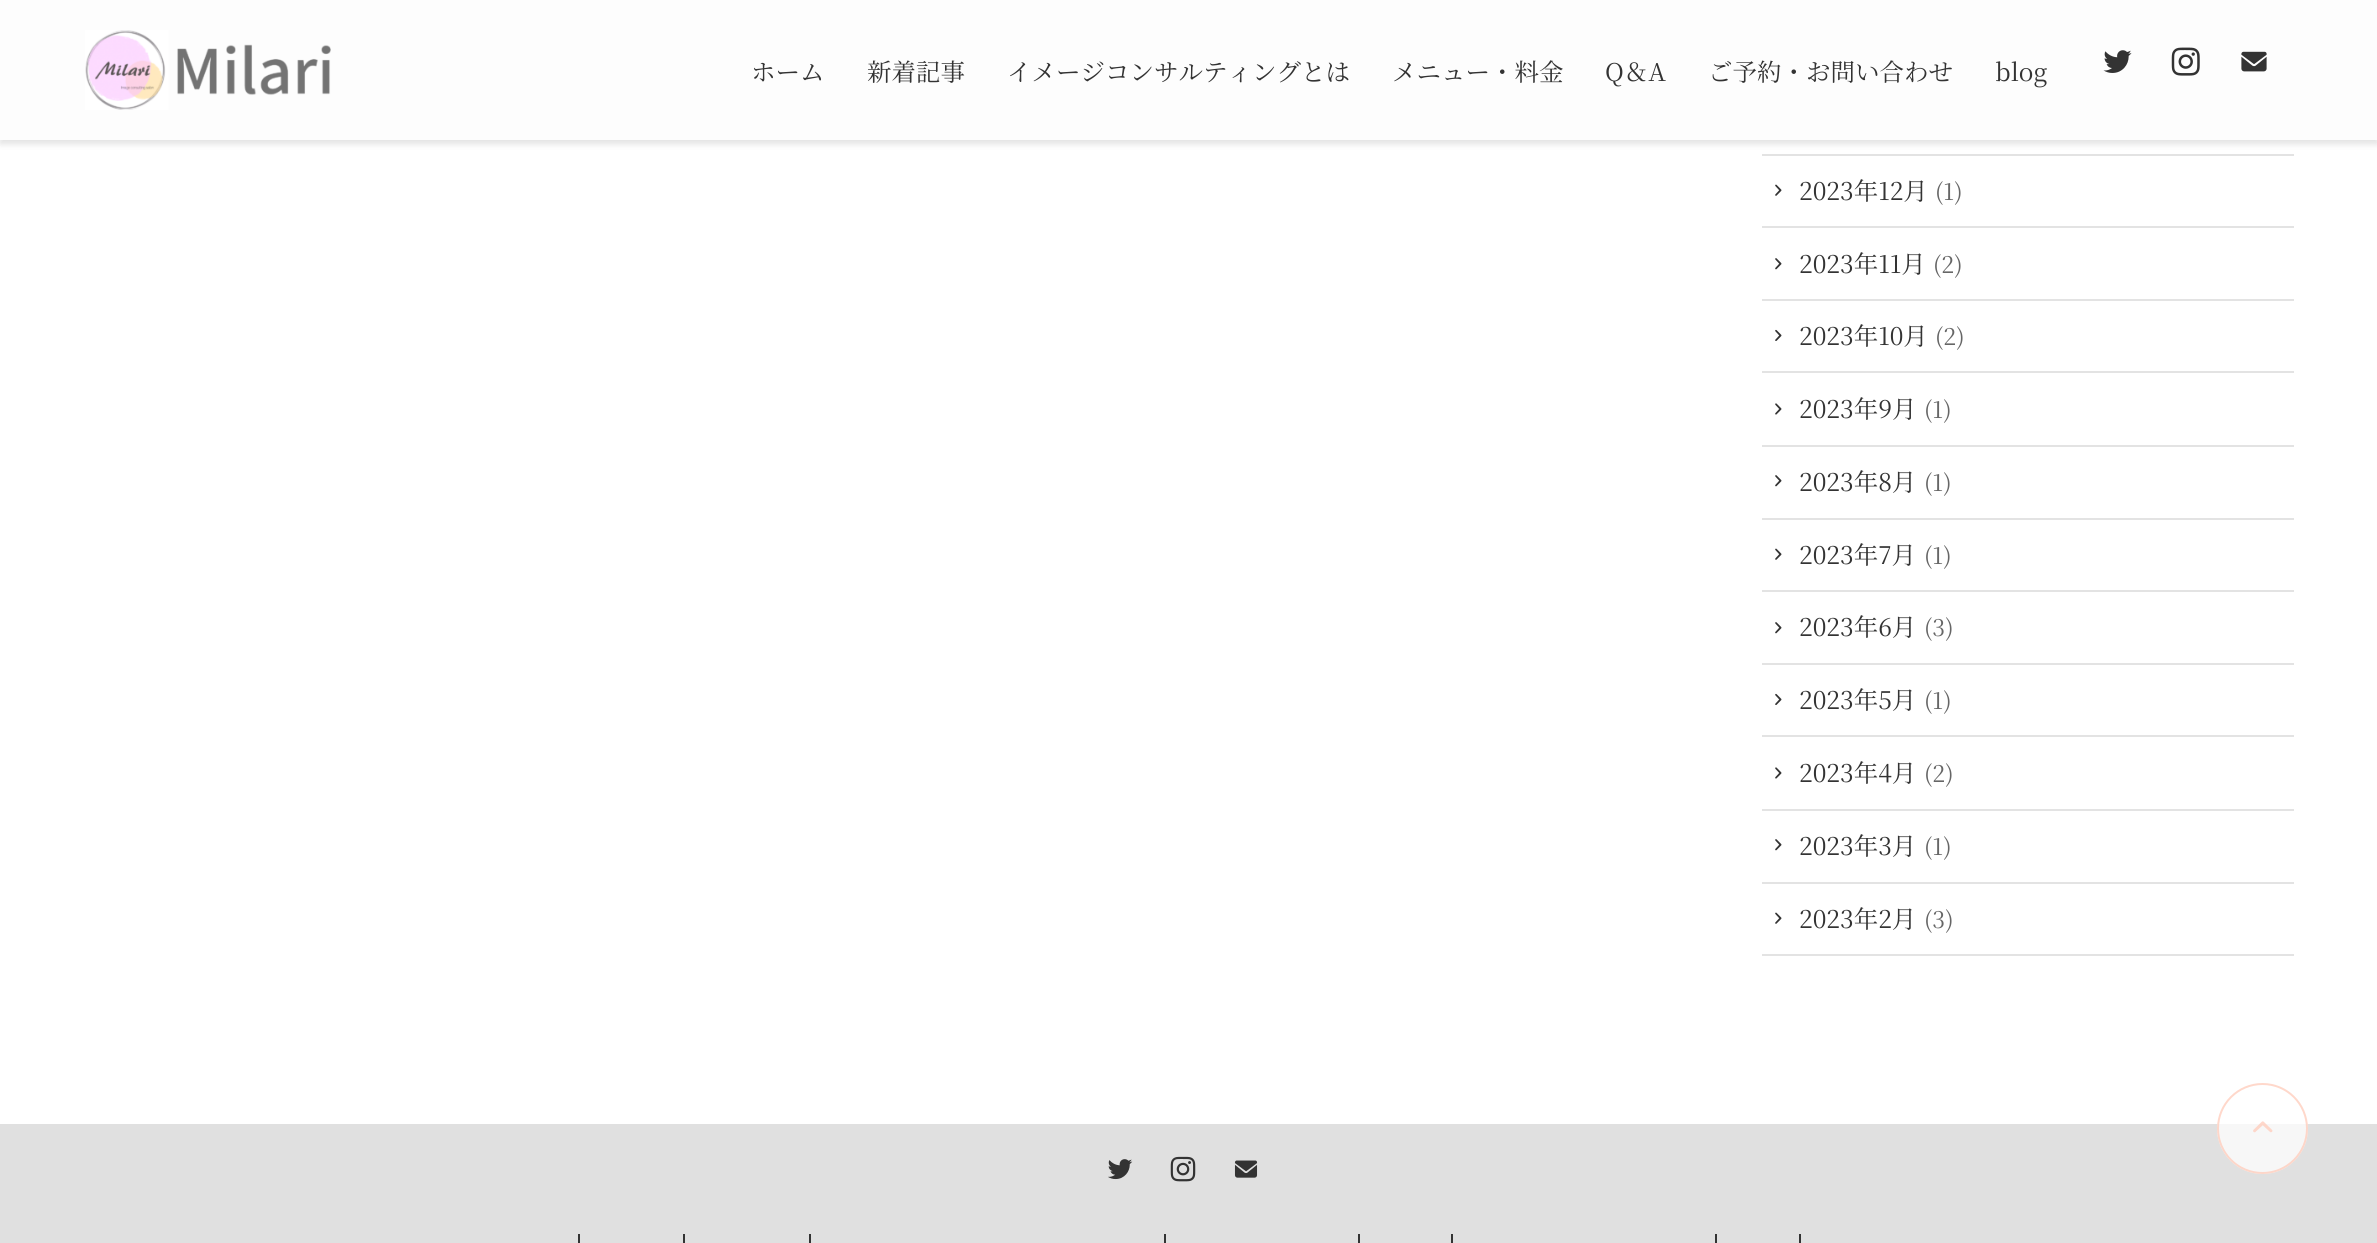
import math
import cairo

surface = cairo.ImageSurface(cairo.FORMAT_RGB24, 2377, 1243)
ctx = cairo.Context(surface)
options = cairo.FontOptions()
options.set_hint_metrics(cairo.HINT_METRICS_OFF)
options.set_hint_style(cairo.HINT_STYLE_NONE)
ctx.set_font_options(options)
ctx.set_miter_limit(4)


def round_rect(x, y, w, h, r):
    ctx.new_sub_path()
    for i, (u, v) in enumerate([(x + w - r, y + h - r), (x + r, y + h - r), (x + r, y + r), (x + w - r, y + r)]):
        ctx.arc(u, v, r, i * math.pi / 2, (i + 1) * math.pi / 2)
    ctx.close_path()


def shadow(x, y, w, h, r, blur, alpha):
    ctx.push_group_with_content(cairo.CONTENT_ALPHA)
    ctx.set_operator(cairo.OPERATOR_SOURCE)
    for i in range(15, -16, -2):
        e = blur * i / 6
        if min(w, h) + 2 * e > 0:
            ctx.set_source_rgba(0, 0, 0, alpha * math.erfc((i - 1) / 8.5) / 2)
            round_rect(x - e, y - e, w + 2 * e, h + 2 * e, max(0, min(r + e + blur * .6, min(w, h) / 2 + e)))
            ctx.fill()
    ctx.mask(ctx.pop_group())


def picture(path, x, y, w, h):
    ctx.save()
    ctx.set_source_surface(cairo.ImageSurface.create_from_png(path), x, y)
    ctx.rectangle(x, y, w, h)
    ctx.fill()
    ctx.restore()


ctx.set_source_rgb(1, 1, 1)
ctx.paint()
ctx.set_source_rgb(0.89, 0.89, 0.89)
ctx.rectangle(1762, 154, 532, 2)
ctx.fill()
ctx.set_source_rgb(0, 0, 0)
shadow(0, 4, 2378, 140, 0, 3.5, 0.12)
ctx.set_source_rgb(0.992, 0.992, 0.992)
ctx.rectangle(0, 0, 2377, 140)
ctx.fill()
picture("img1.png", 85, 30, 246, 80)
ctx.select_font_face("Noto Serif JP")
ctx.set_font_size(24.5)
ctx.set_source_rgb(0.2, 0.2, 0.2)
ctx.move_to(751, 81)
ctx.show_text("ホーム")
ctx.move_to(867, 81)
ctx.show_text("新着記事")
ctx.move_to(1007, 81)
ctx.show_text("イメージコンサルティングとは")
ctx.move_to(1392, 81)
ctx.show_text("メニュー・料金")
ctx.move_to(1605, 81)
ctx.show_text("Q＆A")
ctx.move_to(1708, 81)
ctx.show_text("ご予約・お問い合わせ")
ctx.move_to(1995, 81)
ctx.show_text("blog")
picture("img2.png", 2103, 50, 29, 23)
picture("img3.png", 2171, 47, 29, 29)
picture("img4.png", 2241, 51, 26, 21)
ctx.set_source_rgb(0.89, 0.89, 0.89)
ctx.rectangle(1762, 226, 532, 2)
ctx.fill()
picture("img5.png", 1775, 184, 7, 12)
ctx.set_source_rgb(0.2, 0.2, 0.2)
ctx.move_to(1799, 200)
ctx.show_text("2023年12月")
ctx.set_font_size(23)
ctx.set_source_rgb(0.4, 0.4, 0.4)
ctx.move_to(1935, 200)
ctx.show_text("(1)")
ctx.set_source_rgb(0.89, 0.89, 0.89)
ctx.rectangle(1762, 299, 532, 2)
ctx.fill()
picture("img6.png", 1775, 258, 7, 12)
ctx.set_font_size(24.5)
ctx.set_source_rgb(0.2, 0.2, 0.2)
ctx.move_to(1799, 273)
ctx.show_text("2023年11月")
ctx.set_font_size(23)
ctx.set_source_rgb(0.4, 0.4, 0.4)
ctx.move_to(1933, 273)
ctx.show_text("(2)")
ctx.set_source_rgb(0.89, 0.89, 0.89)
ctx.rectangle(1762, 371, 532, 2)
ctx.fill()
picture("img7.png", 1775, 329, 7, 12)
ctx.set_font_size(24.5)
ctx.set_source_rgb(0.2, 0.2, 0.2)
ctx.move_to(1799, 345)
ctx.show_text("2023年10月")
ctx.set_font_size(23)
ctx.set_source_rgb(0.4, 0.4, 0.4)
ctx.move_to(1935, 345)
ctx.show_text("(2)")
ctx.set_source_rgb(0.89, 0.89, 0.89)
ctx.rectangle(1762, 445, 532, 2)
ctx.fill()
picture("img8.png", 1775, 403, 7, 12)
ctx.set_font_size(24.5)
ctx.set_source_rgb(0.2, 0.2, 0.2)
ctx.move_to(1799, 418)
ctx.show_text("2023年9月")
ctx.set_font_size(23)
ctx.set_source_rgb(0.4, 0.4, 0.4)
ctx.move_to(1924, 418)
ctx.show_text("(1)")
ctx.set_source_rgb(0.89, 0.89, 0.89)
ctx.rectangle(1762, 518, 532, 2)
ctx.fill()
picture("img6.png", 1775, 475, 7, 12)
ctx.set_font_size(24.5)
ctx.set_source_rgb(0.2, 0.2, 0.2)
ctx.move_to(1799, 491)
ctx.show_text("2023年8月")
ctx.set_font_size(23)
ctx.set_source_rgb(0.4, 0.4, 0.4)
ctx.move_to(1924, 491)
ctx.show_text("(1)")
ctx.set_source_rgb(0.89, 0.89, 0.89)
ctx.rectangle(1762, 590, 532, 2)
ctx.fill()
picture("img5.png", 1775, 548, 7, 12)
ctx.set_font_size(24.5)
ctx.set_source_rgb(0.2, 0.2, 0.2)
ctx.move_to(1799, 564)
ctx.show_text("2023年7月")
ctx.set_font_size(23)
ctx.set_source_rgb(0.4, 0.4, 0.4)
ctx.move_to(1924, 564)
ctx.show_text("(1)")
ctx.set_source_rgb(0.89, 0.89, 0.89)
ctx.rectangle(1762, 663, 532, 2)
ctx.fill()
picture("img6.png", 1775, 622, 7, 12)
ctx.set_font_size(24.5)
ctx.set_source_rgb(0.2, 0.2, 0.2)
ctx.move_to(1799, 636)
ctx.show_text("2023年6月")
ctx.set_font_size(23)
ctx.set_source_rgb(0.4, 0.4, 0.4)
ctx.move_to(1924, 636)
ctx.show_text("(3)")
ctx.set_source_rgb(0.89, 0.89, 0.89)
ctx.rectangle(1762, 735, 532, 2)
ctx.fill()
picture("img7.png", 1775, 693, 7, 12)
ctx.set_font_size(24.5)
ctx.set_source_rgb(0.2, 0.2, 0.2)
ctx.move_to(1799, 709)
ctx.show_text("2023年5月")
ctx.set_font_size(23)
ctx.set_source_rgb(0.4, 0.4, 0.4)
ctx.move_to(1924, 709)
ctx.show_text("(1)")
ctx.set_source_rgb(0.89, 0.89, 0.89)
ctx.rectangle(1762, 809, 532, 2)
ctx.fill()
picture("img8.png", 1775, 767, 7, 12)
ctx.set_font_size(24.5)
ctx.set_source_rgb(0.2, 0.2, 0.2)
ctx.move_to(1799, 782)
ctx.show_text("2023年4月")
ctx.set_font_size(23)
ctx.set_source_rgb(0.4, 0.4, 0.4)
ctx.move_to(1924, 782)
ctx.show_text("(2)")
ctx.set_source_rgb(0.89, 0.89, 0.89)
ctx.rectangle(1762, 882, 532, 2)
ctx.fill()
picture("img6.png", 1775, 839, 7, 12)
ctx.set_font_size(24.5)
ctx.set_source_rgb(0.2, 0.2, 0.2)
ctx.move_to(1799, 855)
ctx.show_text("2023年3月")
ctx.set_font_size(23)
ctx.set_source_rgb(0.4, 0.4, 0.4)
ctx.move_to(1924, 855)
ctx.show_text("(1)")
ctx.set_source_rgb(0.89, 0.89, 0.89)
ctx.rectangle(1762, 954, 532, 2)
ctx.fill()
picture("img5.png", 1775, 912, 7, 12)
ctx.set_font_size(24.5)
ctx.set_source_rgb(0.2, 0.2, 0.2)
ctx.move_to(1799, 928)
ctx.show_text("2023年2月")
ctx.set_font_size(23)
ctx.set_source_rgb(0.4, 0.4, 0.4)
ctx.move_to(1924, 928)
ctx.show_text("(3)")
ctx.set_source_rgb(0.878, 0.878, 0.878)
ctx.rectangle(0, 1124, 2377, 119)
ctx.fill()
ctx.set_source_rgba(1, 1, 1, 0.75)
ctx.arc(2262.5, 1128.5, 45.5, 0, 2 * math.pi)
ctx.fill()
ctx.arc(2262.5, 1128.5, 44.5, 0, 2 * math.pi)
ctx.set_source_rgba(1, 0.796, 0.729, 0.75)
ctx.stroke()
picture("img9.png", 2253, 1121, 20, 12)
picture("img10.png", 1108, 1159, 25, 21)
picture("img11.png", 1170, 1156, 26, 26)
picture("img12.png", 1234, 1160, 24, 18)
ctx.set_source_rgb(0.2, 0.2, 0.2)
ctx.rectangle(683, 1234, 2, 9)
ctx.fill()
ctx.rectangle(578, 1234, 2, 9)
ctx.fill()
ctx.rectangle(809, 1234, 2, 9)
ctx.fill()
ctx.rectangle(1164, 1234, 2, 9)
ctx.fill()
ctx.rectangle(1358, 1234, 2, 9)
ctx.fill()
ctx.rectangle(1451, 1234, 2, 9)
ctx.fill()
ctx.rectangle(1715, 1234, 2, 9)
ctx.fill()
ctx.rectangle(1799, 1234, 2, 9)
ctx.fill()
surface.write_to_png("page.png")
